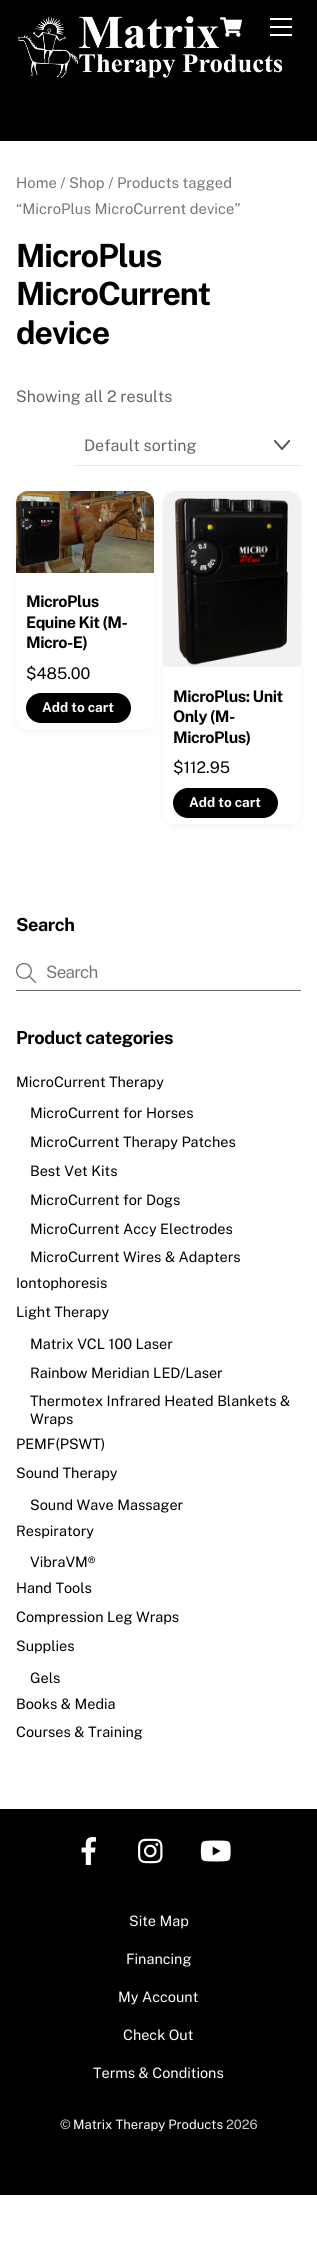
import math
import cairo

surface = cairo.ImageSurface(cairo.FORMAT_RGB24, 317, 2266)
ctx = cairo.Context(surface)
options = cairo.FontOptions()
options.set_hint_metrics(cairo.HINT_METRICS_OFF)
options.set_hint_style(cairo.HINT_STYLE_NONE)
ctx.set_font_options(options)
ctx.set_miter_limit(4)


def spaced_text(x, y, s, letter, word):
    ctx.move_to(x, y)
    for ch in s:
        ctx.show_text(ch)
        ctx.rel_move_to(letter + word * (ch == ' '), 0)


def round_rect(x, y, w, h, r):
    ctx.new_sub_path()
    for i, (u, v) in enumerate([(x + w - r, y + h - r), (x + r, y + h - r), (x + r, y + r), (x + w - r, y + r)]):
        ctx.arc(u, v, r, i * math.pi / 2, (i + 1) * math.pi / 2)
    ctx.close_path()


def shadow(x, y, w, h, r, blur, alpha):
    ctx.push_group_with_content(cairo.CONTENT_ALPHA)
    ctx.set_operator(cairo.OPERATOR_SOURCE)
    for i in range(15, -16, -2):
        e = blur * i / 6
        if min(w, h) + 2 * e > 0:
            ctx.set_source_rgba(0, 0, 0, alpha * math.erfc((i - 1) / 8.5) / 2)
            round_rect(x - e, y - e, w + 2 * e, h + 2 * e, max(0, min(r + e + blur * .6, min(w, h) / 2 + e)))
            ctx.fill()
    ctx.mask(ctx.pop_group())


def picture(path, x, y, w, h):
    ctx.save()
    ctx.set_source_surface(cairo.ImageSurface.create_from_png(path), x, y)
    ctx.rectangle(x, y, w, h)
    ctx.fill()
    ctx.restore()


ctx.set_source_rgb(1, 1, 1)
ctx.paint()
ctx.set_source_rgb(0, 0, 0)
ctx.rectangle(0, 0, 317, 141)
ctx.fill()
picture("img1.png", 17, 16, 266, 62)
picture("img2.png", 220, 17, 22, 20)
ctx.set_source_rgb(1, 1, 1)
ctx.rectangle(270, 34, 22, 2)
ctx.fill()
ctx.rectangle(270, 18, 22, 2)
ctx.fill()
ctx.rectangle(270, 26, 22, 2)
ctx.fill()
ctx.select_font_face("Public Sans")
ctx.set_font_size(14.75)
ctx.set_source_rgb(0.463, 0.463, 0.463)
ctx.move_to(16, 188)
ctx.show_text("Home / Shop / Products tagged")
ctx.move_to(16, 214)
ctx.show_text("“MicroPlus MicroCurrent device”")
ctx.select_font_face("Public Sans", cairo.FONT_SLANT_NORMAL, cairo.FONT_WEIGHT_BOLD)
ctx.set_font_size(32)
ctx.set_source_rgb(0, 0, 0)
spaced_text(16, 267, "MicroPlus", -1, 0)
spaced_text(16, 305, "MicroCurrent", -1, 0)
spaced_text(16, 344, "device", -1, 0)
ctx.select_font_face("Public Sans")
ctx.set_font_size(16)
ctx.set_source_rgb(0.4, 0.4, 0.4)
ctx.move_to(16, 402)
ctx.show_text("Showing all 2 results")
ctx.save()
ctx.rectangle(274, 440, 16, 16)
ctx.clip()
ctx.new_path()
ctx.move_to(274.5, 440.5)
ctx.line_to(282, 449)
ctx.line_to(289.5, 440.5)
ctx.set_source_rgb(0.325, 0.325, 0.325)
ctx.set_line_width(1.9)
ctx.set_line_cap(cairo.LINE_CAP_ROUND)
ctx.stroke()
ctx.restore()
ctx.set_source_rgb(0.914, 0.914, 0.914)
ctx.rectangle(75, 465, 226, 1)
ctx.fill()
ctx.set_source_rgb(0.4, 0.4, 0.4)
ctx.move_to(84, 451)
ctx.show_text("Default sorting")
ctx.set_source_rgb(0, 0, 0)
shadow(16, 493, 138, 239, 12, 4, 0.05)
ctx.set_source_rgb(1, 1, 1)
round_rect(16, 491, 138, 239, 12)
ctx.fill()
picture("img3.png", 16, 491, 138, 82)
ctx.select_font_face("Public Sans", cairo.FONT_SLANT_NORMAL, cairo.FONT_WEIGHT_BOLD)
ctx.set_source_rgb(0, 0, 0)
spaced_text(26, 607, "MicroPlus", -0.5, 0)
spaced_text(26, 628, "Equine Kit (M-", -0.5, 0)
spaced_text(26, 648, "Micro-E)", -0.5, 0)
ctx.select_font_face("Public Sans")
ctx.move_to(26, 679)
ctx.show_text("$485.00")
round_rect(26, 693, 105, 30, 15)
ctx.fill()
ctx.select_font_face("Public Sans", cairo.FONT_SLANT_NORMAL, cairo.FONT_WEIGHT_BOLD)
ctx.set_font_size(13.5)
ctx.set_source_rgb(1, 1, 1)
ctx.move_to(42, 712)
ctx.show_text("Add to cart")
ctx.set_source_rgb(0, 0, 0)
shadow(163, 493, 138, 333, 12, 4, 0.05)
ctx.set_source_rgb(1, 1, 1)
round_rect(163, 491, 138, 333, 12)
ctx.fill()
picture("img4.png", 163, 491, 138, 176)
ctx.set_font_size(16)
ctx.set_source_rgb(0, 0, 0)
spaced_text(173, 702, "MicroPlus: Unit", -0.5, 0)
spaced_text(173, 722, "Only (M-", -0.5, 0)
spaced_text(173, 743, "MicroPlus)", -0.5, 0)
ctx.select_font_face("Public Sans")
ctx.move_to(173, 773)
ctx.show_text("$112.95")
round_rect(173, 788, 105, 30, 15)
ctx.fill()
ctx.select_font_face("Public Sans", cairo.FONT_SLANT_NORMAL, cairo.FONT_WEIGHT_BOLD)
ctx.set_font_size(13.5)
ctx.set_source_rgb(1, 1, 1)
ctx.move_to(189, 807)
ctx.show_text("Add to cart")
ctx.set_font_size(18)
ctx.set_source_rgb(0, 0, 0)
spaced_text(16, 931, "Search", -0.4, 0)
ctx.set_source_rgb(0.4, 0.4, 0.4)
ctx.rectangle(16, 990, 285, 1)
ctx.fill()
picture("img5.png", 16, 963, 21, 21)
ctx.select_font_face("Public Sans")
ctx.set_font_size(17)
ctx.set_source_rgb(0.463, 0.463, 0.463)
spaced_text(46, 978, "Search", -0.75, 0)
ctx.select_font_face("Public Sans", cairo.FONT_SLANT_NORMAL, cairo.FONT_WEIGHT_BOLD)
ctx.set_font_size(18)
ctx.set_source_rgb(0, 0, 0)
spaced_text(16, 1044, "Product categories", -0.4, 0)
ctx.select_font_face("Public Sans")
ctx.set_font_size(14.4)
ctx.move_to(16, 1087)
ctx.show_text("MicroCurrent Therapy")
ctx.move_to(30, 1118)
ctx.show_text("MicroCurrent for Horses")
ctx.move_to(30, 1147)
ctx.show_text("MicroCurrent Therapy Patches")
ctx.move_to(30, 1176)
ctx.show_text("Best Vet Kits")
ctx.move_to(30, 1205)
ctx.show_text("MicroCurrent for Dogs")
ctx.move_to(30, 1234)
ctx.show_text("MicroCurrent Accy Electrodes")
ctx.move_to(30, 1262)
ctx.show_text("MicroCurrent Wires & Adapters")
ctx.move_to(16, 1288)
ctx.show_text("Iontophoresis")
ctx.move_to(16, 1317)
ctx.show_text("Light Therapy")
ctx.move_to(30, 1349)
ctx.show_text("Matrix VCL 100 Laser")
ctx.move_to(30, 1378)
ctx.show_text("Rainbow Meridian LED/Laser")
ctx.move_to(30, 1406)
ctx.show_text("Thermotex Infrared Heated Blankets &")
ctx.move_to(30, 1424)
ctx.show_text("Wraps")
ctx.move_to(16, 1449)
ctx.show_text("PEMF(PSWT)")
ctx.move_to(16, 1478)
ctx.show_text("Sound Therapy")
ctx.move_to(30, 1510)
ctx.show_text("Sound Wave Massager")
ctx.move_to(16, 1536)
ctx.show_text("Respiratory")
ctx.move_to(30, 1567)
ctx.show_text("VibraVM®")
ctx.move_to(16, 1593)
ctx.show_text("Hand Tools")
ctx.move_to(16, 1622)
ctx.show_text("Compression Leg Wraps")
ctx.move_to(16, 1651)
ctx.show_text("Supplies")
ctx.move_to(30, 1683)
ctx.show_text("Gels")
ctx.move_to(16, 1709)
ctx.show_text("Books & Media")
ctx.move_to(16, 1737)
ctx.show_text("Courses & Training")
ctx.rectangle(0, 1809, 317, 386)
ctx.fill()
picture("img6.png", 81, 1837, 15, 28)
picture("img7.png", 138, 1838, 25, 26)
picture("img8.png", 200, 1840, 31, 22)
ctx.set_source_rgb(1, 1, 1)
ctx.move_to(129, 1926)
ctx.show_text("Site Map")
ctx.move_to(126, 1964)
ctx.show_text("Financing")
ctx.move_to(118, 2002)
ctx.show_text("My Account")
ctx.move_to(123, 2040)
ctx.show_text("Check Out")
ctx.move_to(93, 2078)
ctx.show_text("Terms & Conditions")
ctx.set_font_size(13)
ctx.set_source_rgb(0.8, 0.8, 0.8)
ctx.move_to(60, 2129)
ctx.show_text("©")
ctx.set_source_rgb(1, 1, 1)
ctx.move_to(73, 2129)
ctx.show_text("Matrix Therapy Products")
ctx.set_source_rgb(0.8, 0.8, 0.8)
ctx.move_to(226, 2129)
ctx.show_text("2026")
surface.write_to_png("page.png")
